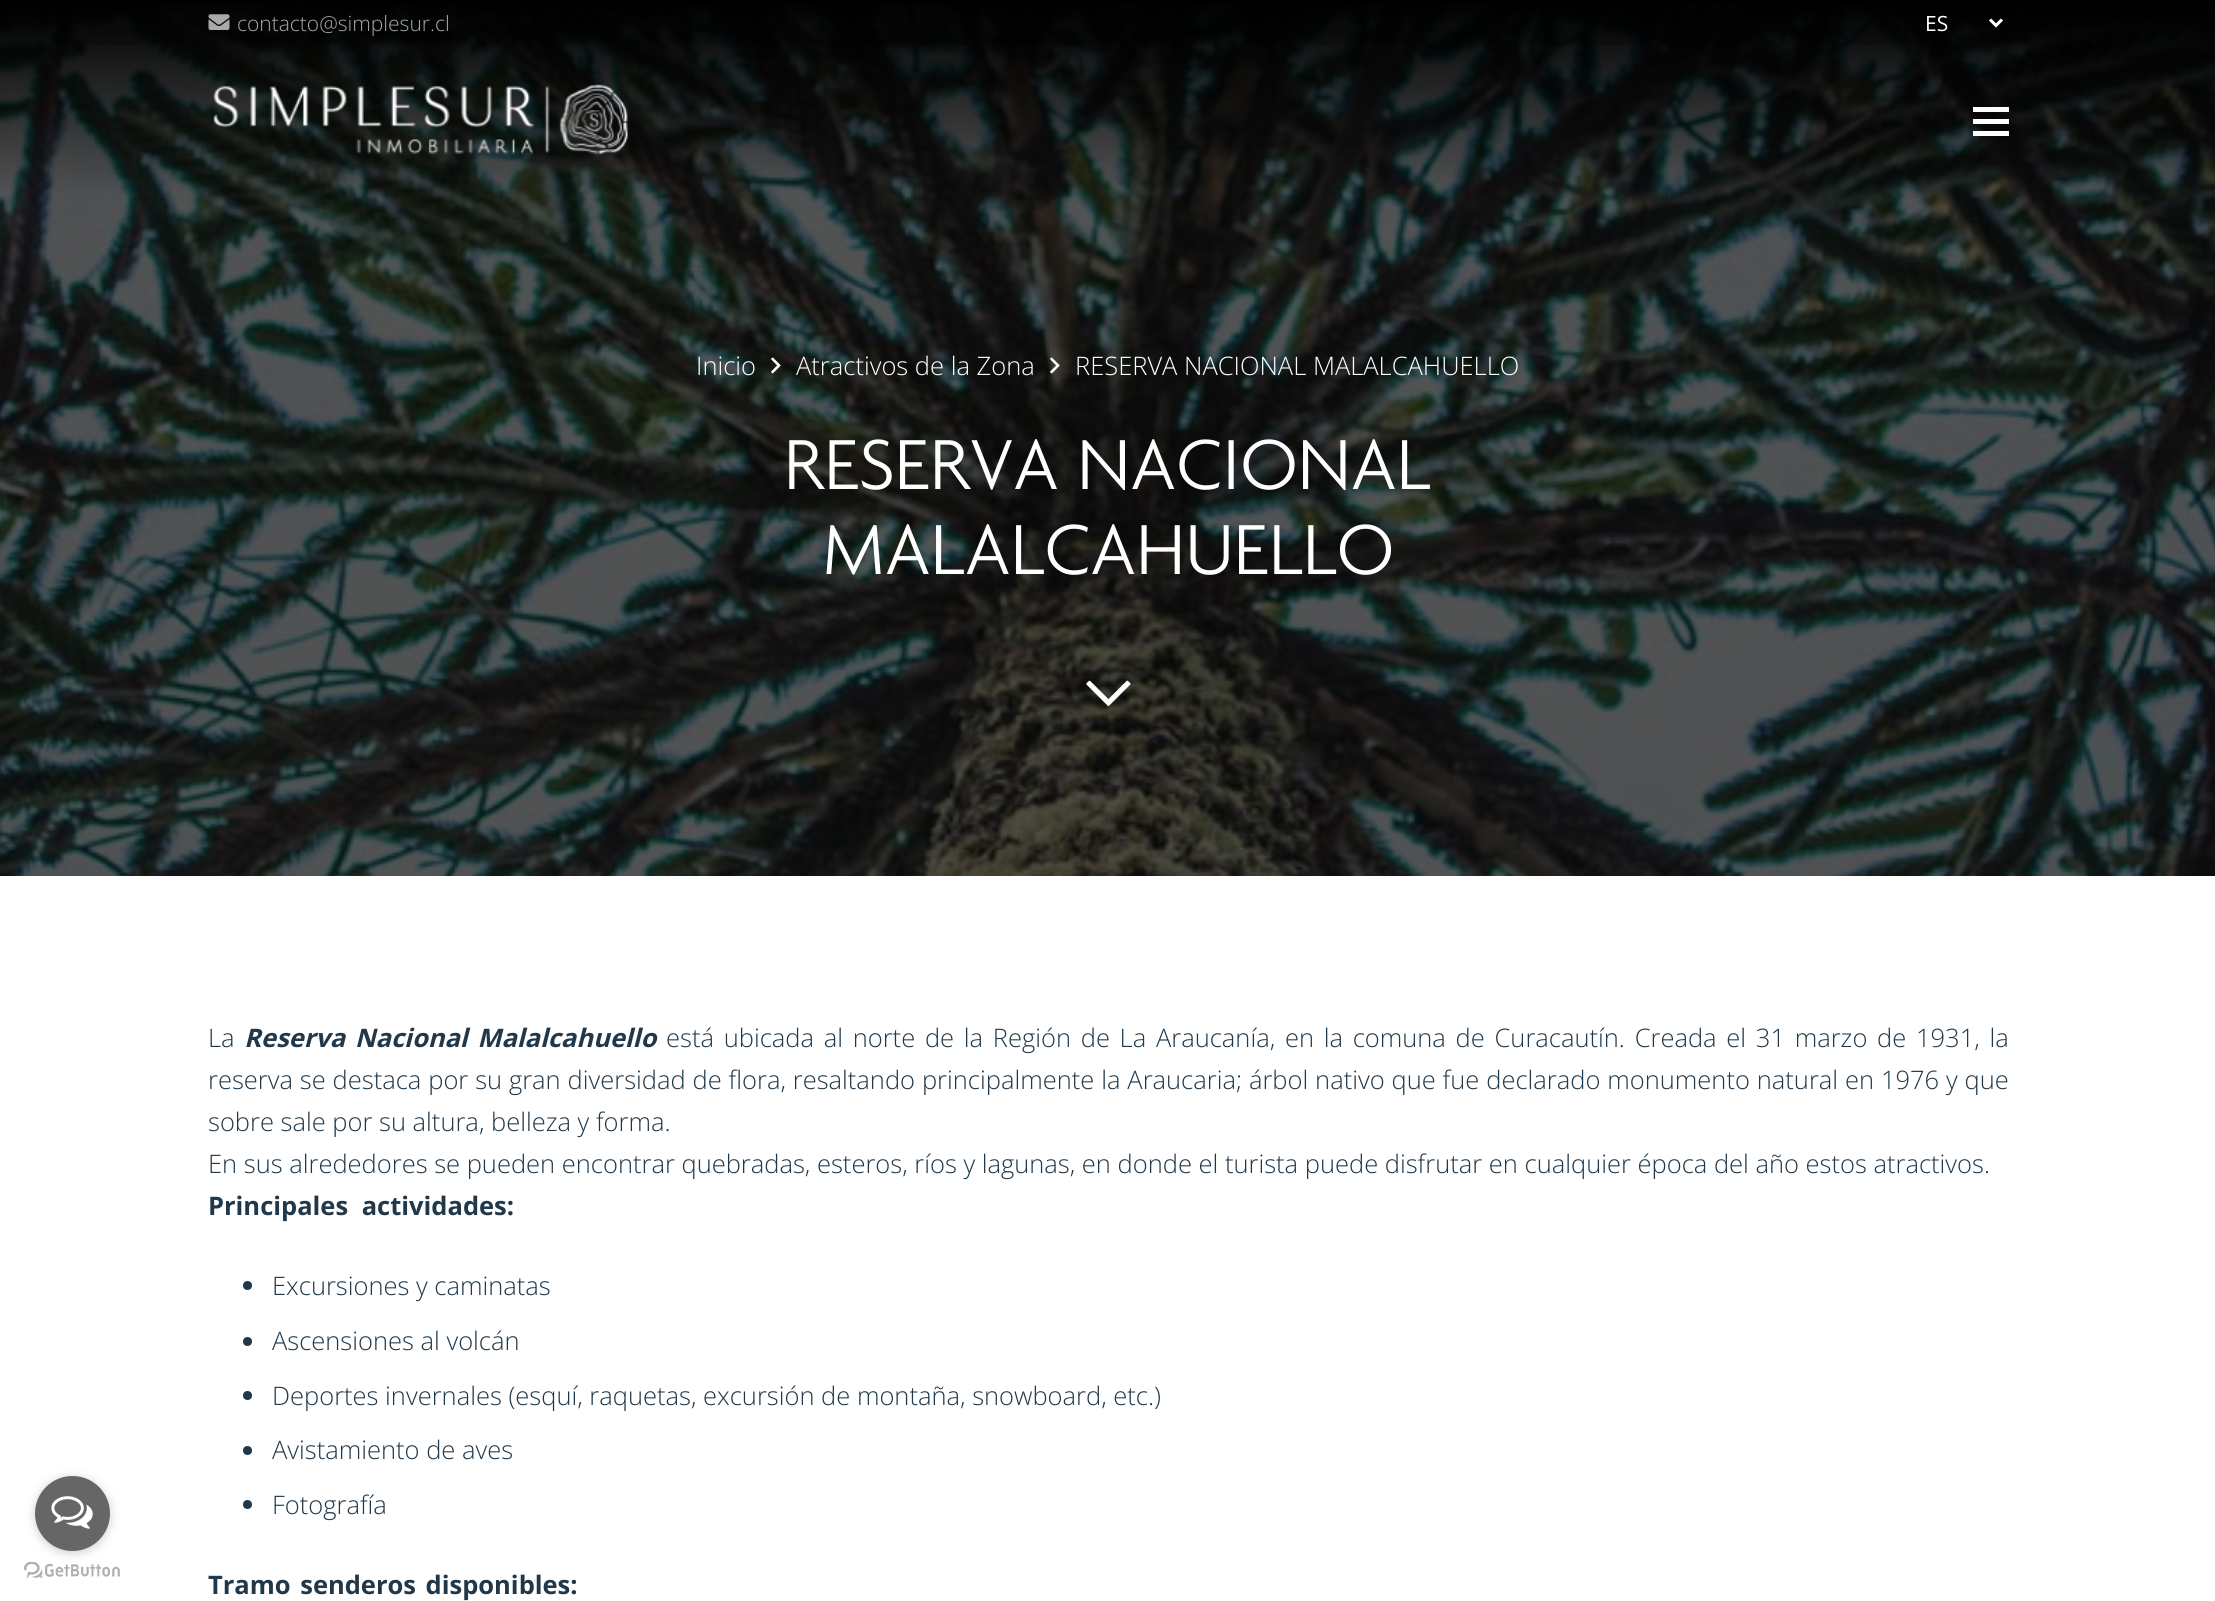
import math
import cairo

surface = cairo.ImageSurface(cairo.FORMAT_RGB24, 2215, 1601)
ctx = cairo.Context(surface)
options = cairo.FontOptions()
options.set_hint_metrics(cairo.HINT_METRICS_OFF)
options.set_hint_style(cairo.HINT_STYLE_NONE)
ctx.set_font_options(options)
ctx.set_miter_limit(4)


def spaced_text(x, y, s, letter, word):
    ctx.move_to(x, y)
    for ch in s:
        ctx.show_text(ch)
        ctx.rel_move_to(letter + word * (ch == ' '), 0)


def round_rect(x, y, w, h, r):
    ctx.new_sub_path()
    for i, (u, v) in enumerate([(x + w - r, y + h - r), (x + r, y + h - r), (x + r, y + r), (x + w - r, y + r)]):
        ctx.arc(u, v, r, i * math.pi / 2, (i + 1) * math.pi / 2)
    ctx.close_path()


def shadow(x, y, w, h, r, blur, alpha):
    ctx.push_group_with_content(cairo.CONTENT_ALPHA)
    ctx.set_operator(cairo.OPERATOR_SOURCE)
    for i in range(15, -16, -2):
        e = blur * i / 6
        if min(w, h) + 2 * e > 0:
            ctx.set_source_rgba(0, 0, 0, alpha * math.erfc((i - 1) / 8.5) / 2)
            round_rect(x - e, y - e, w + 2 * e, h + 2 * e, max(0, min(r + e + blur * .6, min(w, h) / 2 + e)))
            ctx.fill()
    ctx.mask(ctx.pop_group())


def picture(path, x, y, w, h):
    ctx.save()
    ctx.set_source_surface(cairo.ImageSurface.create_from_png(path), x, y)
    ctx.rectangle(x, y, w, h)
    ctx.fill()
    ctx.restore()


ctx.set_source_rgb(1, 1, 1)
ctx.paint()
picture("img2.png", 24, 1562, 96, 16)
ctx.set_source_rgb(0.533, 0.533, 0.533)
shadow(35, 1478, 75, 75, 37.5, 5, 0.4)
ctx.set_source_rgb(0.4, 0.4, 0.4)
ctx.arc(72.5, 1513.5, 37.5, 0, 2 * math.pi)
ctx.fill()
picture("img1.png", 51, 1496, 42, 33)
picture("img5.png", 0, 0, 2215, 876)
ctx.set_source_rgba(0, 0, 0, 0.2)
ctx.rectangle(0, 29, 2033, 16)
ctx.fill()
picture("img3.png", 208, 14, 22, 16)
ctx.select_font_face("Open Sans Light")
ctx.set_font_size(21)
ctx.set_source_rgb(0.663, 0.663, 0.663)
ctx.move_to(237, 31)
ctx.show_text("contacto@simplesur.cl")
ctx.new_path()
ctx.move_to(1990, 19.5)
ctx.line_to(1996, 25.5)
ctx.line_to(2002, 19.5)
ctx.set_source_rgb(1, 1, 1)
ctx.set_line_width(3)
ctx.stroke()
ctx.select_font_face("Open Sans")
ctx.move_to(1925, 31)
ctx.show_text("ES")
picture("img4.png", 213, 84, 416, 71)
ctx.rectangle(1973, 119, 36, 5)
ctx.fill()
ctx.rectangle(1973, 107, 36, 5)
ctx.fill()
ctx.rectangle(1973, 131, 36, 5)
ctx.fill()
ctx.select_font_face("Open Sans Light")
ctx.set_font_size(25.5)
ctx.move_to(696, 375)
ctx.show_text("Inicio")
picture("img6.png", 771, 357, 10, 17)
ctx.move_to(796, 375)
ctx.show_text("Atractivos de la Zona")
picture("img7.png", 1050, 357, 10, 17)
ctx.move_to(1075, 375)
ctx.show_text("RESERVA NACIONAL MALALCAHUELLO")
ctx.select_font_face("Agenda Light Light")
ctx.set_font_size(76.5)
ctx.move_to(784, 489)
ctx.show_text("RESERVA NACIONAL")
ctx.move_to(822, 574)
ctx.show_text("MALALCAHUELLO")
picture("img8.png", 1086, 680, 45, 26)
ctx.select_font_face("Open Sans Light")
ctx.set_font_size(25.5)
ctx.set_source_rgb(0.125, 0.22, 0.286)
ctx.move_to(208, 1047)
ctx.show_text("La")
ctx.select_font_face("Open Sans", cairo.FONT_SLANT_ITALIC, cairo.FONT_WEIGHT_BOLD)
spaced_text(244, 1047, "Reserva Nacional Malalcahuello", 0, 3.1)
ctx.select_font_face("Open Sans Light")
spaced_text(666, 1047, "está ubicada al norte de la Región de La Araucanía, en la comuna de Curacautín. Creada el 31 marzo de 1931, la", 0, 3.1)
spaced_text(208, 1089, "reserva se destaca por su gran diversidad de flora, resaltando principalmente la Araucaria; árbol nativo que fue declarado monumento natural en 1976 y que", 0, 0.25)
ctx.move_to(208, 1131)
ctx.show_text("sobre sale por su altura, belleza y forma.")
ctx.move_to(208, 1173)
ctx.show_text("En sus alrededores se pueden encontrar quebradas, esteros, ríos y lagunas, en donde el turista puede disfrutar en cualquier época del año estos atractivos.")
ctx.select_font_face("Open Sans", cairo.FONT_SLANT_NORMAL, cairo.FONT_WEIGHT_BOLD)
spaced_text(208, 1215, "Principales actividades:", 0, 7)
ctx.new_path()
ctx.arc(247.5, 1285.5, 4.5, 0, 2 * math.pi)
ctx.fill()
ctx.select_font_face("Open Sans Light")
ctx.move_to(272, 1295)
ctx.show_text("Excursiones y caminatas")
ctx.new_path()
ctx.arc(247.5, 1341.5, 4.5, 0, 2 * math.pi)
ctx.fill()
ctx.move_to(272, 1350)
ctx.show_text("Ascensiones al volcán")
ctx.new_path()
ctx.arc(247.5, 1395.5, 4.5, 0, 2 * math.pi)
ctx.fill()
ctx.move_to(272, 1405)
ctx.show_text("Deportes invernales (esquí, raquetas, excursión de montaña, snowboard, etc.)")
ctx.new_path()
ctx.arc(247.5, 1450.5, 4.5, 0, 2 * math.pi)
ctx.fill()
ctx.move_to(272, 1459)
ctx.show_text("Avistamiento de aves")
ctx.new_path()
ctx.arc(247.5, 1504.5, 4.5, 0, 2 * math.pi)
ctx.fill()
ctx.move_to(272, 1514)
ctx.show_text("Fotografía")
ctx.select_font_face("Open Sans", cairo.FONT_SLANT_NORMAL, cairo.FONT_WEIGHT_BOLD)
spaced_text(208, 1594, "Tramo senderos disponibles:", 0, 3)
surface.write_to_png("page.png")
